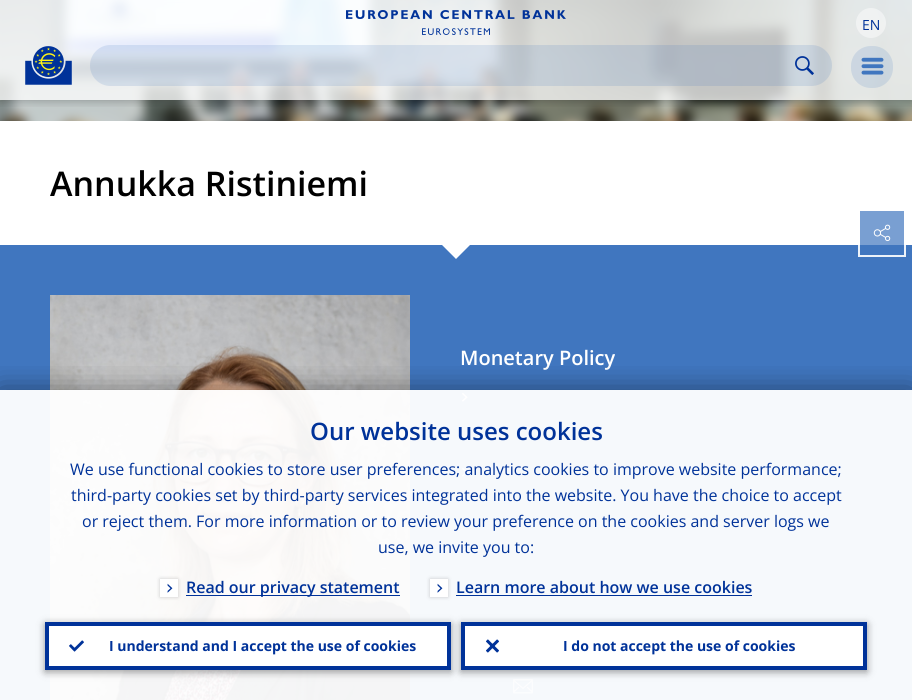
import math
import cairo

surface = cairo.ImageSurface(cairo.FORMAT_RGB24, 912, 700)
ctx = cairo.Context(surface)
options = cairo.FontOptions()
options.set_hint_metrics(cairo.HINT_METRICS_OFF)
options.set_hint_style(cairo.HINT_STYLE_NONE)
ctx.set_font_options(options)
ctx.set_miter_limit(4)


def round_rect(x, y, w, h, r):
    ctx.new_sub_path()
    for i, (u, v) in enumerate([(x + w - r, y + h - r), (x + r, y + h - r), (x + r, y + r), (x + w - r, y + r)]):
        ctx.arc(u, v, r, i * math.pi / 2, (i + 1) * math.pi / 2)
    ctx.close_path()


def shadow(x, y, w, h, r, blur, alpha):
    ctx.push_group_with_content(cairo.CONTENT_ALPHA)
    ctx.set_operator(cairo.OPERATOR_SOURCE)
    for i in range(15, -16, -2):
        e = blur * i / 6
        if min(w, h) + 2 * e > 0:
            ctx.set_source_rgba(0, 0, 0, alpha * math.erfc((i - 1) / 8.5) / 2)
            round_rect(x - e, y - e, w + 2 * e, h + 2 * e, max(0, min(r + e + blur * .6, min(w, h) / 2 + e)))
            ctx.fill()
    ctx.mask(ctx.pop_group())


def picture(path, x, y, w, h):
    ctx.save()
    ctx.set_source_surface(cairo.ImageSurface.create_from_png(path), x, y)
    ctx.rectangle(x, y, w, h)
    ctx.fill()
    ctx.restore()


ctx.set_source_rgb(1, 1, 1)
ctx.paint()
picture("img5.png", 0, 0, 912, 121)
ctx.save()
ctx.rectangle(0, 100, 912, 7)
ctx.clip()
ctx.set_source_rgb(0, 0, 0)
shadow(0, 0, 912, 100, 0, 5, 0.3)
ctx.restore()
ctx.set_source_rgba(1, 1, 1, 0.75)
ctx.rectangle(0, 0, 912, 100)
ctx.fill()
picture("img1.png", 346, 10, 220, 25)
ctx.set_source_rgba(1, 1, 1, 0.45)
ctx.arc(871, 23, 15, 0, 2 * math.pi)
ctx.fill()
ctx.select_font_face("Open Sans")
ctx.set_font_size(14)
ctx.set_source_rgb(0, 0.196, 0.6)
ctx.move_to(862, 30)
ctx.show_text("EN")
picture("img2.png", 25, 46, 47, 39)
ctx.set_source_rgba(0.251, 0.463, 0.741, 0.15)
round_rect(90, 45, 742, 41, 20.5)
ctx.fill()
picture("img3.png", 795, 56, 19, 19)
round_rect(851, 46, 42, 42, 20)
ctx.fill()
picture("img4.png", 861, 57, 23, 18)
ctx.set_source_rgb(0.475, 0.624, 0.824)
ctx.rectangle(860, 211, 44, 34)
ctx.fill()
ctx.select_font_face("Open Sans SemiBold")
ctx.set_font_size(34)
ctx.set_source_rgb(0, 0, 0)
ctx.move_to(50, 196)
ctx.show_text("Annukka Ristiniemi")
ctx.set_source_rgb(0.251, 0.463, 0.749)
ctx.rectangle(0, 245, 912, 455)
ctx.fill()
ctx.save()
ctx.rectangle(0, 245, 912, 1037)
ctx.clip()
ctx.set_source_rgb(1, 1, 1)
ctx.new_path()
ctx.move_to(441, 244)
ctx.line_to(471, 244)
ctx.line_to(456, 259)
ctx.close_path()
ctx.fill()
ctx.restore()
picture("img6.png", 50, 295, 360, 405)
ctx.set_font_size(20)
ctx.set_source_rgb(1, 1, 1)
ctx.move_to(460, 365)
ctx.show_text("Monetary Policy")
picture("img7.png", 461, 392, 7, 10)
picture("img7.png", 461, 467, 7, 10)
picture("img7.png", 461, 542, 7, 10)
picture("img8.png", 513, 679, 20, 15)
ctx.rectangle(859, 210, 46, 46)
ctx.set_source_rgba(1, 1, 1, 0.9)
ctx.stroke()
picture("img9.png", 873, 224, 18, 18)
ctx.save()
ctx.rectangle(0, 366, 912, 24)
ctx.clip()
ctx.set_source_rgb(0, 0, 0)
shadow(0, 392, 912, 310, 0, 15, 0.5)
ctx.restore()
ctx.set_source_rgba(1, 1, 1, 0.95)
ctx.rectangle(0, 390, 912, 310)
ctx.fill()
ctx.set_font_size(24)
ctx.set_source_rgb(0, 0.196, 0.6)
ctx.move_to(310, 440)
ctx.show_text("Our website uses cookies")
ctx.select_font_face("Open Sans")
ctx.set_font_size(16)
ctx.move_to(70, 475)
ctx.show_text("We use functional cookies to store user preferences; analytics cookies to improve website performance;")
ctx.move_to(71, 501)
ctx.show_text("third-party cookies set by third-party services integrated into the website. You have the choice to accept")
ctx.move_to(82, 527)
ctx.show_text("or reject them. For more information or to review your preference on the cookies and server logs we")
ctx.move_to(378, 553)
ctx.show_text("use, we invite you to:")
ctx.set_source_rgb(0, 0, 0)
shadow(160, 579, 18, 18, 0, 2, 0.2)
ctx.set_source_rgb(1, 1, 1)
ctx.rectangle(160, 579, 18, 18)
ctx.fill()
picture("img10.png", 167, 583, 6, 10)
ctx.set_source_rgb(0, 0.196, 0.6)
ctx.rectangle(186, 595, 214, 1)
ctx.fill()
ctx.select_font_face("Open Sans SemiBold")
ctx.move_to(186, 593)
ctx.show_text("Read our privacy statement")
ctx.set_source_rgb(0, 0, 0)
shadow(430, 579, 18, 18, 0, 2, 0.2)
ctx.set_source_rgb(1, 1, 1)
ctx.rectangle(430, 579, 18, 18)
ctx.fill()
picture("img10.png", 437, 583, 6, 10)
ctx.set_source_rgb(0, 0.196, 0.6)
ctx.move_to(456, 593)
ctx.show_text("Learn more about how we use cookies")
ctx.rectangle(456, 595, 296, 1)
ctx.fill()
ctx.set_source_rgb(0, 0, 0)
shadow(45, 624, 406, 48, 0, 4, 0.4)
ctx.set_source_rgb(1, 1, 1)
ctx.rectangle(47, 624, 402, 44)
ctx.fill_preserve()
ctx.set_source_rgb(0, 0.196, 0.6)
ctx.set_line_width(4)
ctx.stroke()
picture("img11.png", 69, 640, 15, 12)
ctx.select_font_face("Open Sans", cairo.FONT_SLANT_NORMAL, cairo.FONT_WEIGHT_BOLD)
ctx.set_font_size(14)
ctx.move_to(109, 651)
ctx.show_text("I understand and I accept the use of cookies")
ctx.set_source_rgb(0, 0, 0)
shadow(461, 624, 406, 48, 0, 4, 0.4)
ctx.set_source_rgb(1, 1, 1)
ctx.rectangle(463, 624, 402, 44)
ctx.fill_preserve()
ctx.set_source_rgb(0, 0.196, 0.6)
ctx.stroke()
picture("img12.png", 486, 639, 13, 14)
ctx.move_to(563, 651)
ctx.show_text("I do not accept the use of cookies")
surface.write_to_png("page.png")
